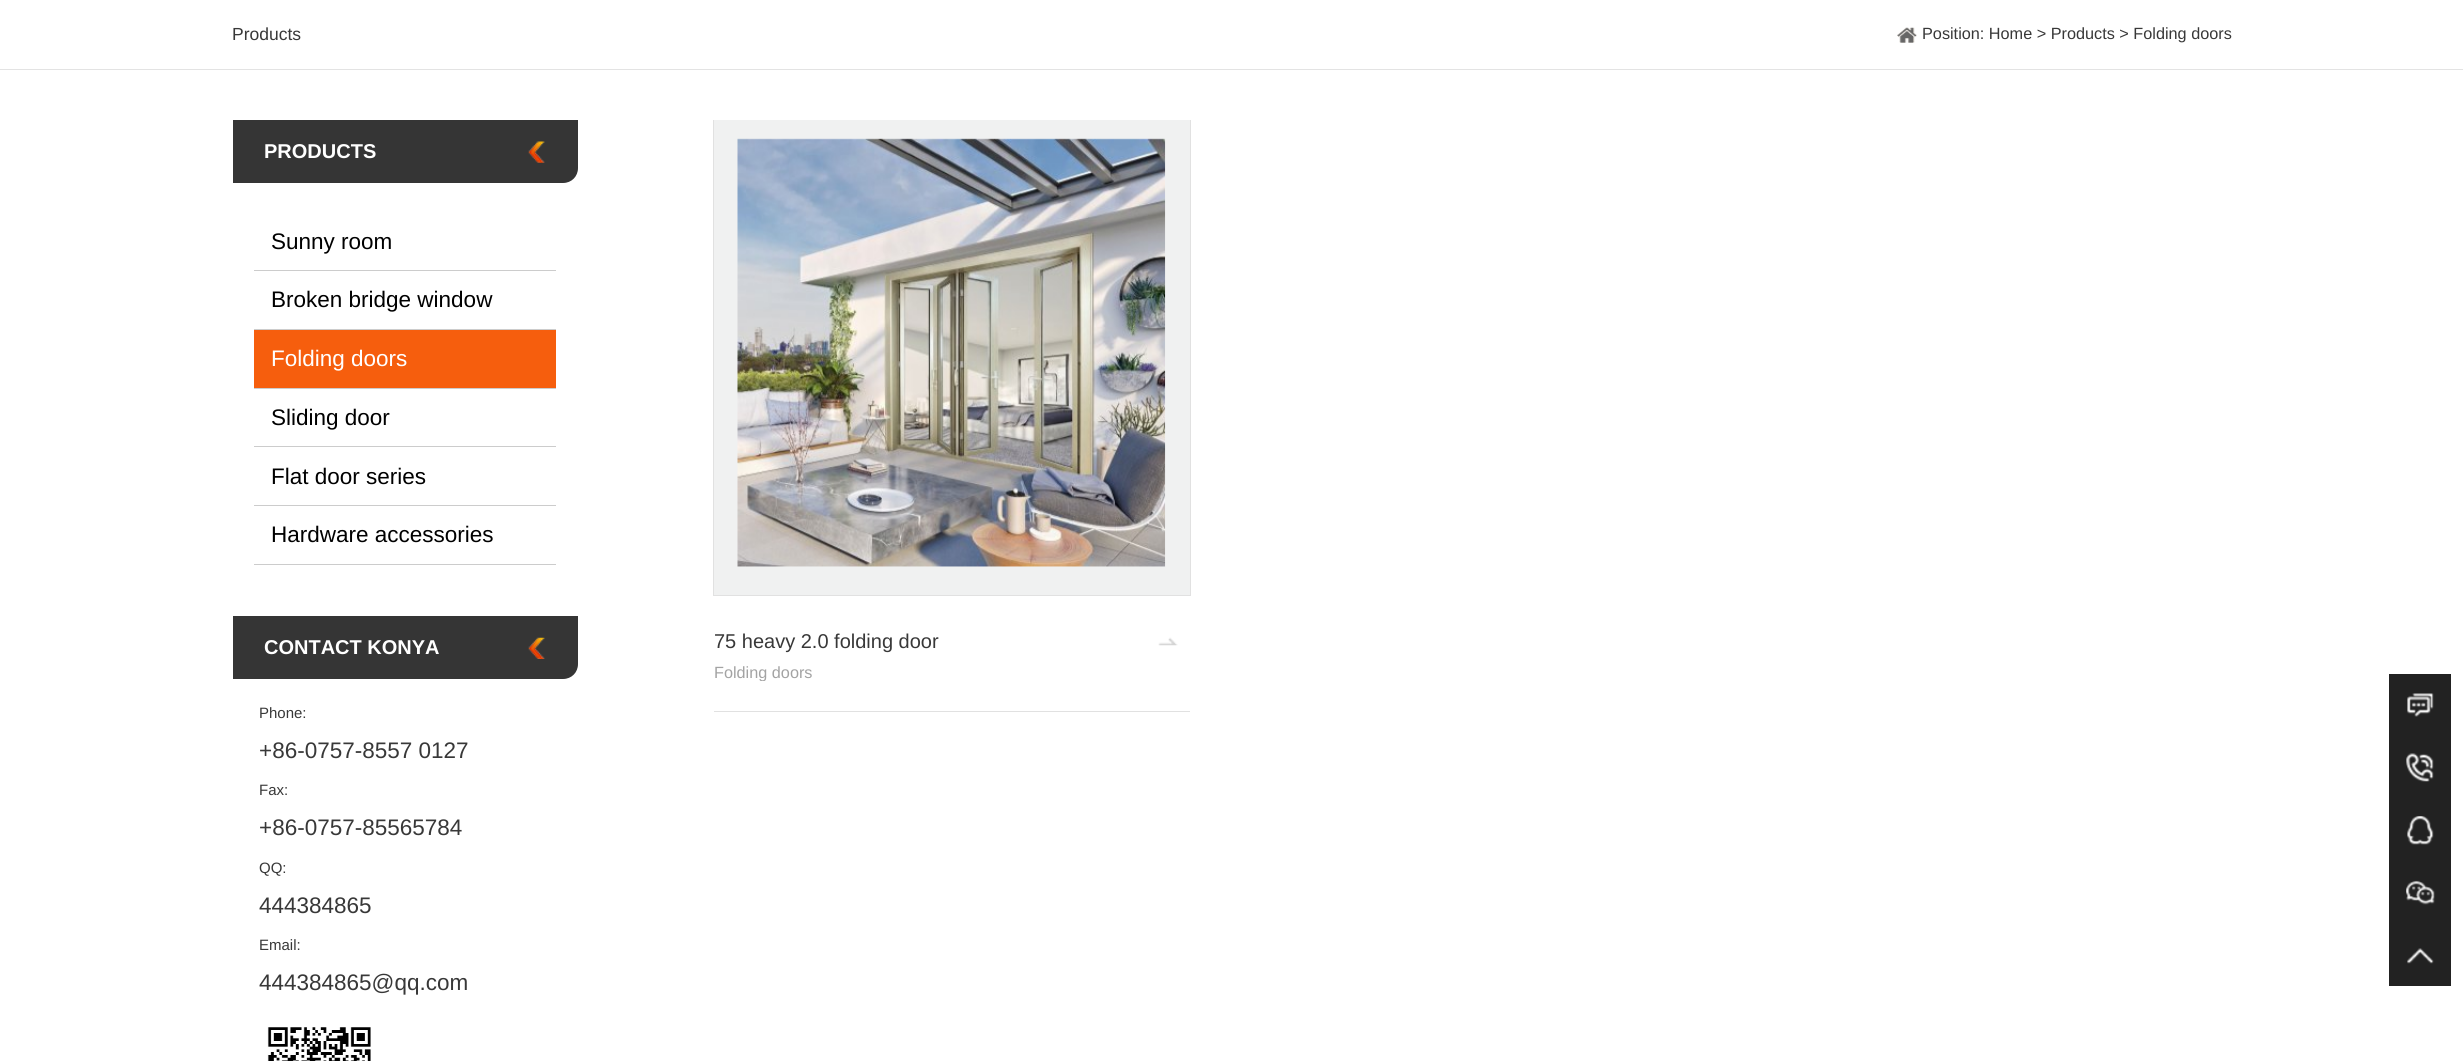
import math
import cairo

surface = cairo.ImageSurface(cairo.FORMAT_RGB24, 2463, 1061)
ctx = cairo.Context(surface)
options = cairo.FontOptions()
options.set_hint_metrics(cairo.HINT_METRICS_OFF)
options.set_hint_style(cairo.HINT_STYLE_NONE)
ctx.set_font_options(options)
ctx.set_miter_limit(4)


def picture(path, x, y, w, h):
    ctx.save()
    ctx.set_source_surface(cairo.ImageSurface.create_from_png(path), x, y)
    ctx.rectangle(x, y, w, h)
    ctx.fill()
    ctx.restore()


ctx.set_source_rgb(1, 1, 1)
ctx.paint()
ctx.set_source_rgb(0.89, 0.89, 0.89)
ctx.rectangle(0, 69, 2463, 1)
ctx.fill()
ctx.select_font_face("Liberation Sans")
ctx.set_font_size(17.5)
ctx.set_source_rgb(0.22, 0.22, 0.22)
ctx.move_to(232, 40)
ctx.show_text("Products")
picture("img1.png", 1897, 27, 20, 16)
ctx.set_font_size(16.25)
ctx.move_to(1922, 39)
ctx.show_text("Position: Home > Products > Folding doors")
ctx.set_source_rgb(0.208, 0.208, 0.208)
ctx.new_path()
ctx.move_to(233, 120)
ctx.line_to(578, 120)
ctx.line_to(578, 168)
ctx.curve_to(578, 176.5, 571.5, 183, 563, 183)
ctx.line_to(233, 183)
ctx.close_path()
ctx.fill()
ctx.select_font_face("Liberation Sans", cairo.FONT_SLANT_NORMAL, cairo.FONT_WEIGHT_BOLD)
ctx.set_font_size(20)
ctx.set_source_rgb(1, 1, 1)
ctx.move_to(264, 158)
ctx.show_text("PRODUCTS")
picture("img2.png", 528, 141, 17, 22)
ctx.set_source_rgb(0.8, 0.8, 0.8)
ctx.rectangle(254, 270, 302, 1)
ctx.fill()
ctx.select_font_face("Liberation Sans")
ctx.set_font_size(22.5)
ctx.set_source_rgb(0, 0, 0)
ctx.move_to(271, 249)
ctx.show_text("Sunny room")
ctx.set_source_rgb(0.8, 0.8, 0.8)
ctx.rectangle(254, 329, 302, 1)
ctx.fill()
ctx.set_source_rgb(0, 0, 0)
ctx.move_to(271, 307)
ctx.show_text("Broken bridge window")
ctx.set_source_rgb(0.961, 0.369, 0.051)
ctx.rectangle(254, 330, 302, 58)
ctx.fill()
ctx.set_source_rgb(0.8, 0.8, 0.8)
ctx.rectangle(254, 388, 302, 1)
ctx.fill()
ctx.set_source_rgb(1, 1, 1)
ctx.move_to(271, 366)
ctx.show_text("Folding doors")
ctx.set_source_rgb(0.8, 0.8, 0.8)
ctx.rectangle(254, 446, 302, 1)
ctx.fill()
ctx.set_source_rgb(0, 0, 0)
ctx.move_to(271, 425)
ctx.show_text("Sliding door")
ctx.set_source_rgb(0.8, 0.8, 0.8)
ctx.rectangle(254, 505, 302, 1)
ctx.fill()
ctx.set_source_rgb(0, 0, 0)
ctx.move_to(271, 484)
ctx.show_text("Flat door series")
ctx.set_source_rgb(0.8, 0.8, 0.8)
ctx.rectangle(254, 564, 302, 1)
ctx.fill()
ctx.set_source_rgb(0, 0, 0)
ctx.move_to(271, 542)
ctx.show_text("Hardware accessories")
ctx.set_source_rgb(0.208, 0.208, 0.208)
ctx.new_path()
ctx.move_to(233, 616)
ctx.line_to(578, 616)
ctx.line_to(578, 664)
ctx.curve_to(578, 672.5, 571.5, 679, 563, 679)
ctx.line_to(233, 679)
ctx.close_path()
ctx.fill()
ctx.select_font_face("Liberation Sans", cairo.FONT_SLANT_NORMAL, cairo.FONT_WEIGHT_BOLD)
ctx.set_font_size(20)
ctx.set_source_rgb(1, 1, 1)
ctx.move_to(264, 654)
ctx.show_text("CONTACT KONYA")
picture("img3.png", 528, 637, 17, 22)
ctx.select_font_face("Liberation Sans")
ctx.set_font_size(15)
ctx.set_source_rgb(0.22, 0.22, 0.22)
ctx.move_to(259, 718)
ctx.show_text("Phone:")
ctx.set_font_size(22.5)
ctx.move_to(259, 758)
ctx.show_text("+86-0757-8557 0127")
ctx.set_font_size(15)
ctx.move_to(259, 795)
ctx.show_text("Fax:")
ctx.set_font_size(22.5)
ctx.move_to(259, 835)
ctx.show_text("+86-0757-85565784")
ctx.set_font_size(15)
ctx.move_to(259, 873)
ctx.show_text("QQ:")
ctx.set_font_size(22.5)
ctx.move_to(259, 913)
ctx.show_text("444384865")
ctx.set_font_size(15)
ctx.move_to(259, 950)
ctx.show_text("Email:")
ctx.set_font_size(22.5)
ctx.move_to(259, 990)
ctx.show_text("444384865@qq.com")
picture("img4.png", 267, 1027, 104, 34)
ctx.set_source_rgb(0.882, 0.882, 0.882)
ctx.rectangle(714, 711, 476, 1)
ctx.fill()
ctx.set_source_rgb(0.941, 0.945, 0.945)
ctx.rectangle(714, 120, 476, 475)
ctx.fill()
ctx.save()
ctx.rectangle(0, 120, 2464, 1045)
ctx.clip()
ctx.rectangle(713.5, 119.5, 477, 476)
ctx.set_source_rgb(0.882, 0.882, 0.882)
ctx.set_line_width(1)
ctx.stroke()
ctx.restore()
picture("img5.png", 737, 138, 429, 429)
ctx.set_font_size(20)
ctx.set_source_rgb(0.22, 0.22, 0.22)
ctx.move_to(714, 648)
ctx.show_text("75 heavy 2.0 folding door")
picture("img6.png", 1158, 637, 20, 9)
ctx.save()
ctx.rectangle(714, 663, 432, 18)
ctx.clip()
ctx.set_font_size(16.25)
ctx.set_source_rgb(0.639, 0.639, 0.639)
ctx.move_to(714, 678)
ctx.show_text("Folding doors")
ctx.restore()
ctx.set_source_rgb(0.133, 0.133, 0.133)
ctx.rectangle(2389, 674, 62, 312)
ctx.fill()
picture("img7.png", 2407, 693, 27, 24)
picture("img8.png", 2406, 753, 28, 29)
picture("img9.png", 2407, 816, 27, 29)
picture("img10.png", 2406, 880, 29, 25)
picture("img11.png", 2407, 948, 27, 16)
surface.write_to_png("page.png")
